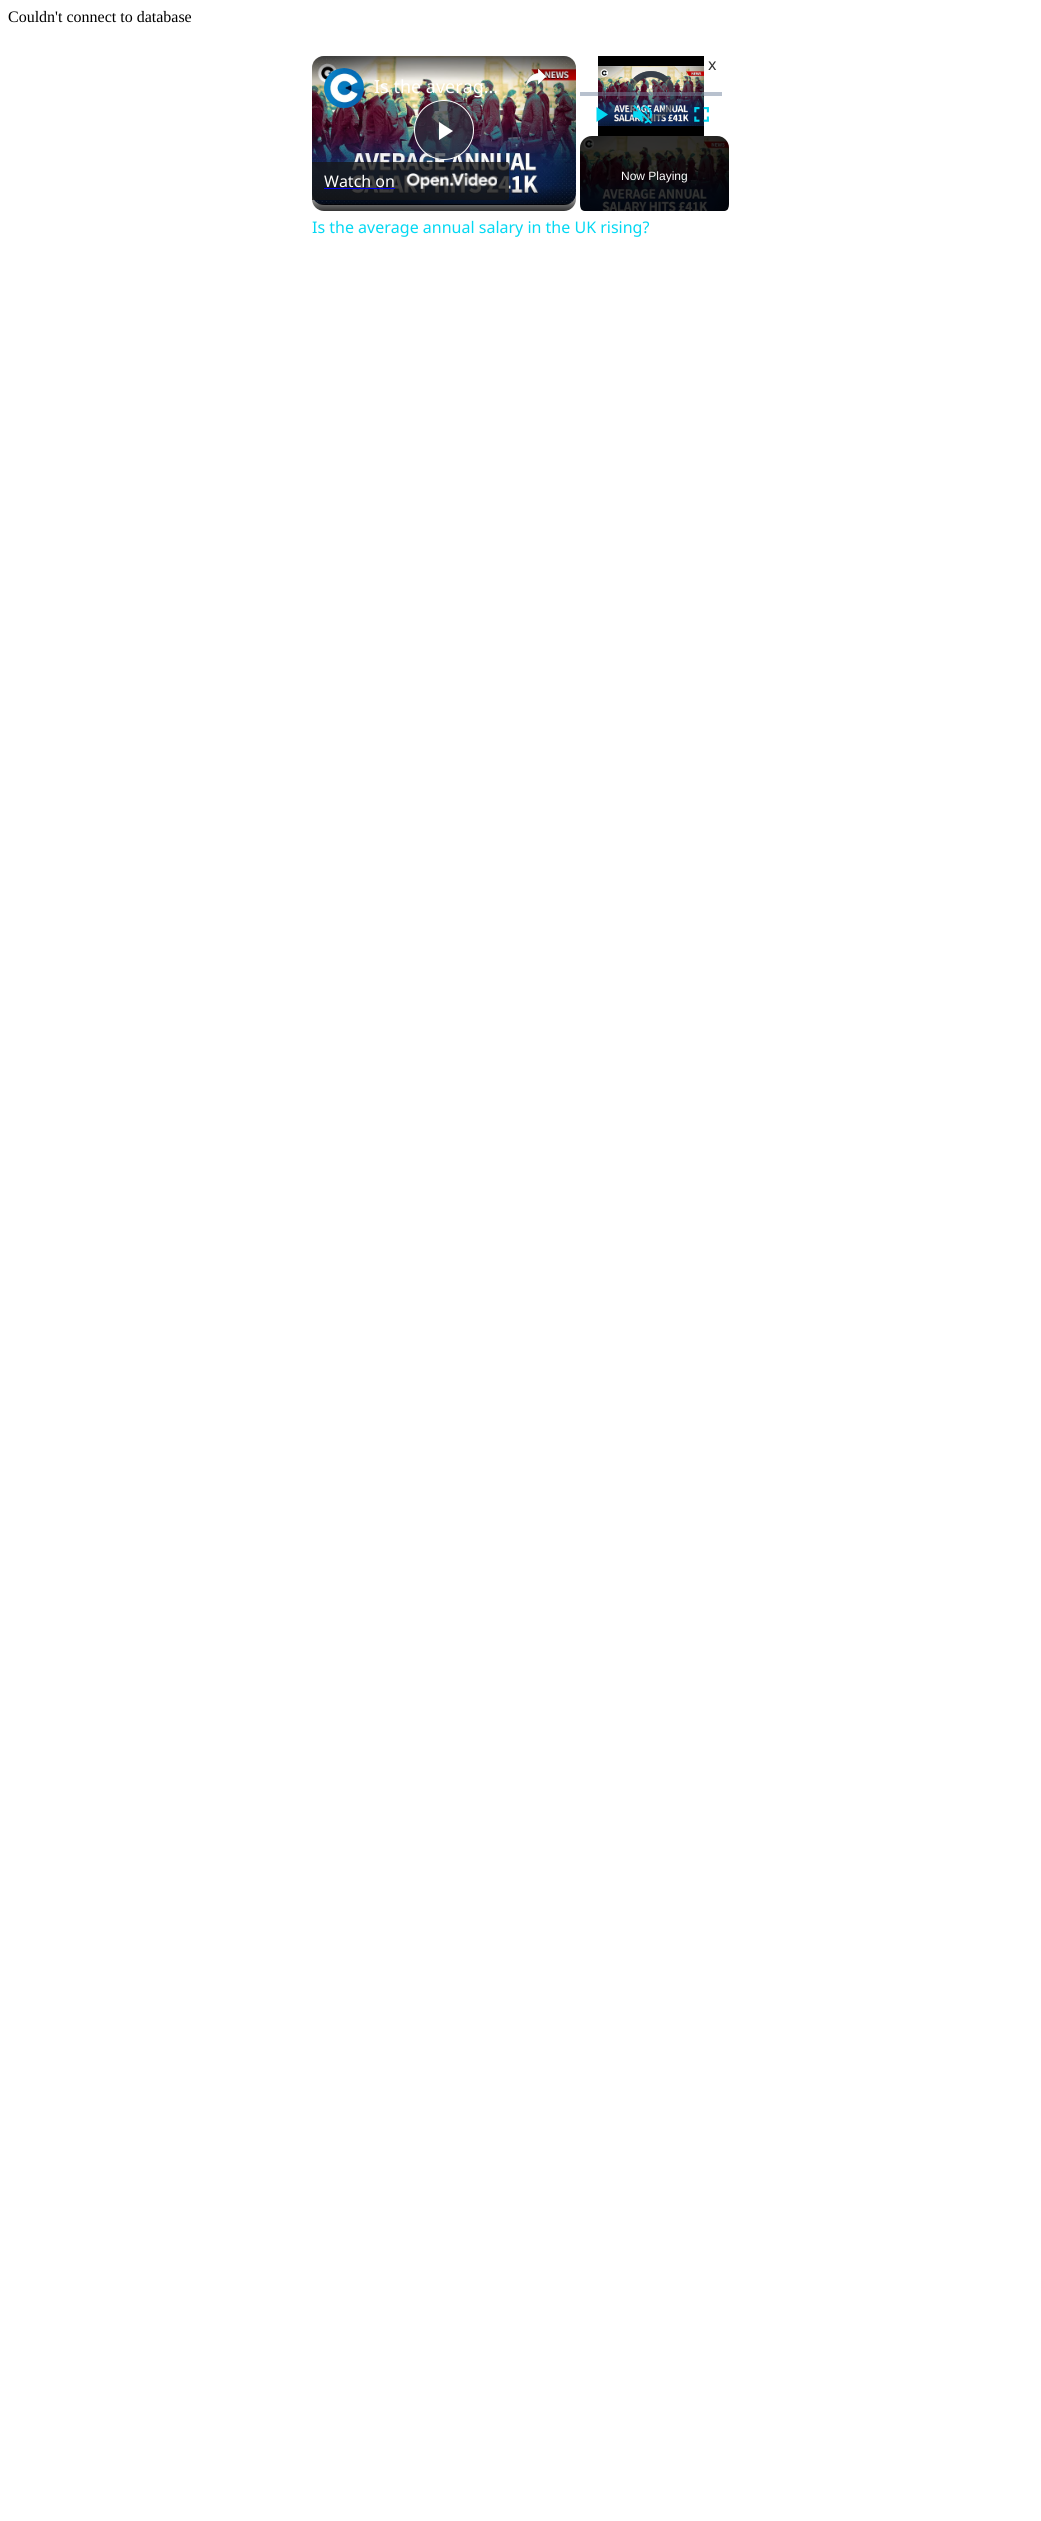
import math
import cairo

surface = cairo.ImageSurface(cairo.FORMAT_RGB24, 1041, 2521)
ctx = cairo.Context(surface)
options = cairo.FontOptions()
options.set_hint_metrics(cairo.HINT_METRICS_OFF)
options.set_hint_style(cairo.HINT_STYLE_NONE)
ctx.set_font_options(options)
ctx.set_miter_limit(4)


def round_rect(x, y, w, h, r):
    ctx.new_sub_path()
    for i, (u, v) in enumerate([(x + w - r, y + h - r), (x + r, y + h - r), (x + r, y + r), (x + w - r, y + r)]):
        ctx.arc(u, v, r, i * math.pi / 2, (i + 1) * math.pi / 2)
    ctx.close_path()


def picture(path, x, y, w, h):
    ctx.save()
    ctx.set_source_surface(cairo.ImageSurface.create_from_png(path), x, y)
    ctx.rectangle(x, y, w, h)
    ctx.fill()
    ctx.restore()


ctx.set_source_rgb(1, 1, 1)
ctx.paint()
ctx.select_font_face("Liberation Serif")
ctx.set_font_size(16)
ctx.set_source_rgb(0, 0, 0)
ctx.move_to(8, 22)
ctx.show_text("Couldn't connect to database")
picture("img1.png", 312, 56, 264, 149)
ctx.set_source_rgba(0.169, 0.2, 0.247, 0.7)
ctx.arc(444, 130, 29.5, 0, 2 * math.pi)
ctx.fill_preserve()
ctx.set_source_rgb(1, 1, 1)
ctx.set_line_width(1)
ctx.stroke()
ctx.new_path()
ctx.move_to(439, 122)
ctx.line_to(439, 140)
ctx.line_to(453, 131)
ctx.close_path()
ctx.fill()
gradient = cairo.LinearGradient(444, 56, 444, 211)
gradient.add_color_stop_rgba(0, 0, 0, 0, 0.6)
gradient.add_color_stop_rgba(0.16, 0, 0, 0, 0)
gradient.add_color_stop_rgba(0.84, 0, 0, 0, 0)
gradient.add_color_stop_rgba(1, 0, 0, 0, 0.8)
ctx.set_source(gradient)
round_rect(312, 56, 264, 155, 12)
ctx.fill()
picture("img2.png", 324, 68, 40, 40)
ctx.select_font_face("Noto Sans")
ctx.set_font_size(18)
ctx.set_source_rgb(1, 1, 1)
ctx.move_to(374, 93)
ctx.show_text("Is the averag…")
picture("img3.png", 525, 67, 22, 20)
ctx.set_source_rgba(0.09, 0.09, 0.09, 0.8)
ctx.new_path()
ctx.move_to(312, 162)
ctx.line_to(507, 162)
ctx.curve_to(508, 162, 509, 163, 509, 164)
ctx.line_to(509, 198)
ctx.curve_to(509, 199, 508, 200, 507, 200)
ctx.line_to(312, 200)
ctx.close_path()
ctx.fill()
ctx.set_font_size(16)
ctx.set_source_rgb(1, 1, 1)
ctx.move_to(324, 187)
ctx.show_text("Watch on")
ctx.set_source_rgb(0, 0, 0.933)
ctx.rectangle(324, 188, 71, 1)
ctx.fill()
picture("img4.png", 406, 173, 91, 16)
picture("img5.png", 598, 56, 106, 80)
ctx.arc(651, 96, 22, 0, 2 * math.pi)
ctx.set_source_rgba(0.169, 0.2, 0.247, 0.59)
ctx.set_line_width(6)
ctx.stroke()
ctx.new_path()
ctx.move_to(635.5, 80.5)
ctx.curve_to(644, 72, 658, 72, 666.5, 80.5)
ctx.stroke()
ctx.new_path()
ctx.move_to(635.5, 80.5)
ctx.curve_to(644, 72, 658, 72, 666.5, 80.5)
ctx.stroke()
ctx.set_source_rgba(0.451, 0.522, 0.624, 0.5)
ctx.rectangle(580, 92, 142, 4)
ctx.fill()
ctx.set_source_rgb(0.012, 0.847, 0.953)
ctx.new_path()
ctx.move_to(596.5, 107)
ctx.line_to(596.5, 122)
ctx.line_to(608, 114.5)
ctx.close_path()
ctx.fill()
picture("img6.png", 633, 105, 19, 19)
picture("img7.png", 694, 107, 15, 15)
ctx.set_source_rgb(0.2, 0.2, 0.2)
ctx.move_to(708, 70)
ctx.show_text("x")
ctx.save()
round_rect(576, 56, 153, 155, 5)
ctx.clip()
round_rect(580, 136, 149, 75, 5)
ctx.clip()
ctx.set_source_rgb(0, 0, 0)
round_rect(580, 136, 149, 80, 12)
ctx.fill()
ctx.restore()
picture("img8.png", 580, 136, 149, 75)
ctx.select_font_face("Liberation Sans")
ctx.set_font_size(12)
ctx.set_source_rgb(1, 1, 1)
ctx.move_to(621, 180)
ctx.show_text("Now Playing")
ctx.select_font_face("Noto Sans")
ctx.set_font_size(16)
ctx.set_source_rgb(0.012, 0.847, 0.953)
ctx.move_to(312, 233)
ctx.show_text("Is the average annual salary in the UK rising?")
surface.write_to_png("page.png")
